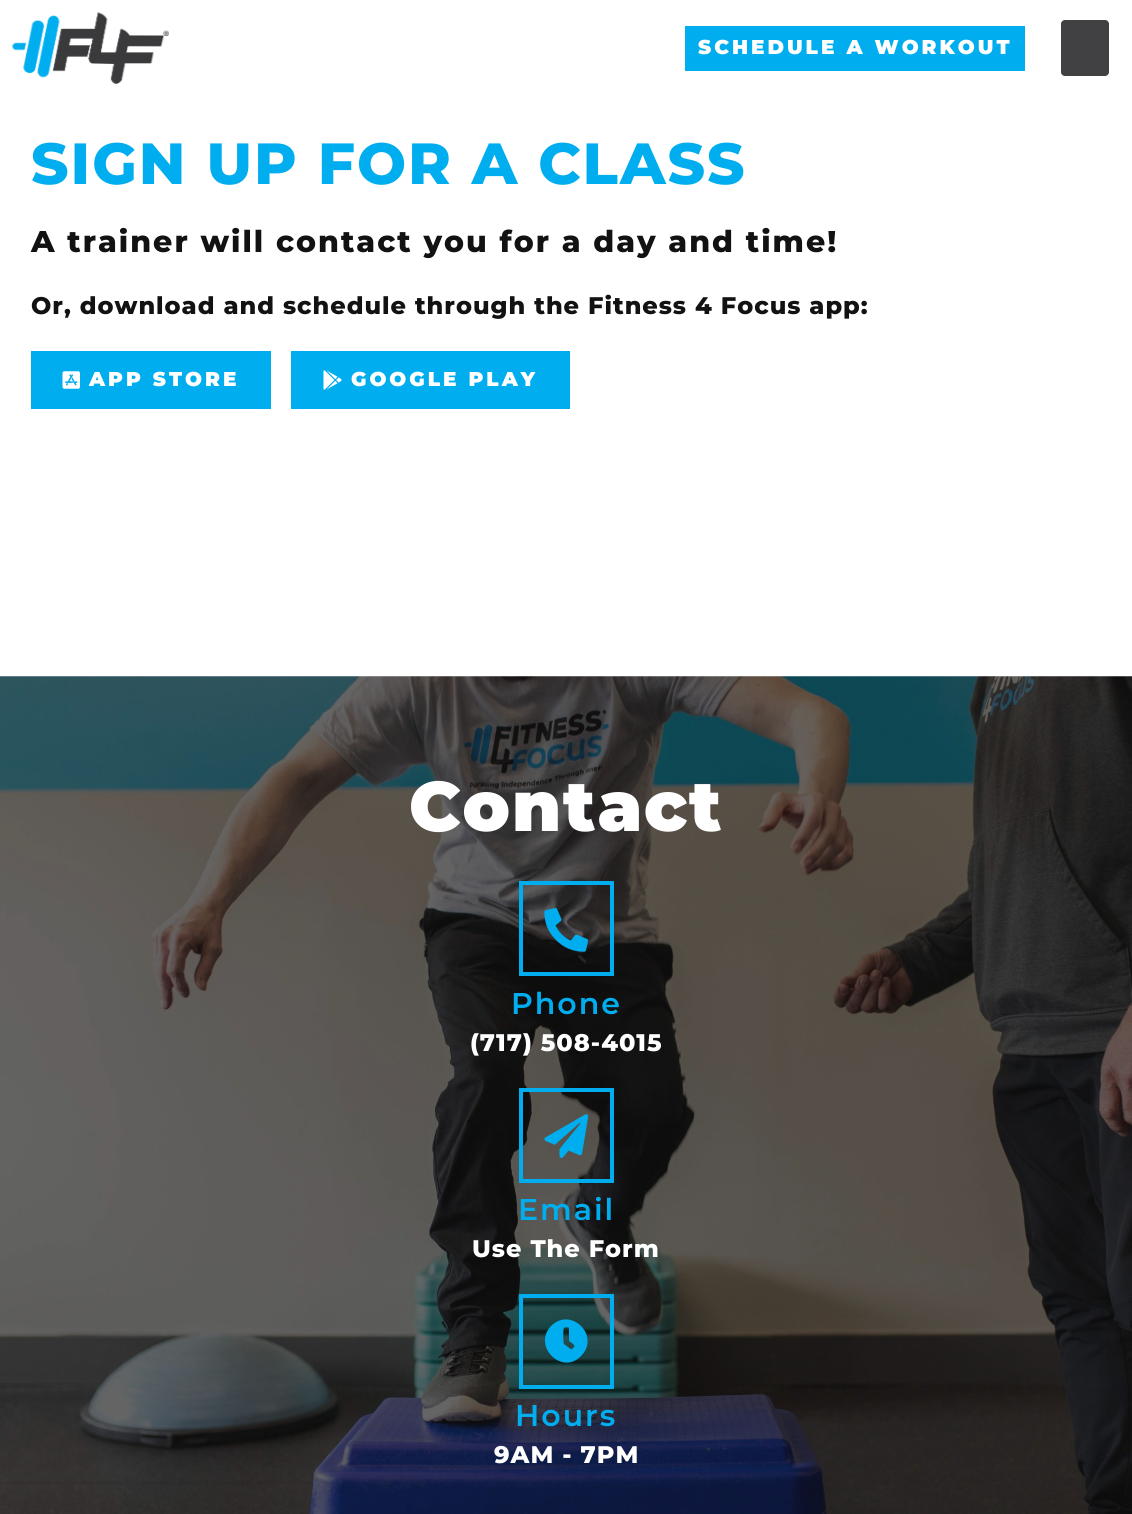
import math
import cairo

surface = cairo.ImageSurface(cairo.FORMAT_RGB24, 1132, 1514)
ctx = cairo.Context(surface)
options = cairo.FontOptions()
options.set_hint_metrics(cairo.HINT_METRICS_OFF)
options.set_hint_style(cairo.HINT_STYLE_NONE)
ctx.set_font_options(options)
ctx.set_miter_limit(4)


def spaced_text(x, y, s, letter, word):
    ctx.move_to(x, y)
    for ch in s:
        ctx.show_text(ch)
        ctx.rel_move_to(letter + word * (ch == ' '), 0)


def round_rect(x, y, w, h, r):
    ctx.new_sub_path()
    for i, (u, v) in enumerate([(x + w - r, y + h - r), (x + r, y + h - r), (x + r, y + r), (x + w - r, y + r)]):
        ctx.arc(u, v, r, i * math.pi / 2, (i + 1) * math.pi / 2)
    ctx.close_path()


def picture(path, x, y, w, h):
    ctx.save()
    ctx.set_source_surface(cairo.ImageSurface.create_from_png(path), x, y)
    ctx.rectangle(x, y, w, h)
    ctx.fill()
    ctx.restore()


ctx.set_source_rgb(1, 1, 1)
ctx.paint()
picture("img1.png", 12, 12, 157, 72)
ctx.set_source_rgb(0, 0.682, 0.937)
ctx.rectangle(685, 26, 340, 45)
ctx.fill()
ctx.select_font_face("Montserrat Black")
ctx.set_font_size(20)
ctx.set_source_rgb(1, 1, 1)
spaced_text(698, 54, "SCHEDULE A WORKOUT", 3, 0)
ctx.set_source_rgb(0.255, 0.251, 0.259)
round_rect(1061, 20, 48, 56, 4)
ctx.fill()
ctx.select_font_face("Montserrat ExtraBold")
ctx.set_font_size(58)
ctx.set_source_rgb(0, 0.682, 0.937)
spaced_text(31, 184, "SIGN UP FOR A CLASS", 2, 0)
ctx.set_font_size(30)
ctx.set_source_rgb(0.071, 0.071, 0.071)
spaced_text(31, 252, "A trainer will contact you for a day and time!", 2, 0)
ctx.set_font_size(24)
spaced_text(31, 314, "Or, download and schedule through the Fitness 4 Focus app:", 1, 0)
ctx.set_source_rgb(0, 0.682, 0.937)
ctx.rectangle(31, 351, 240, 58)
ctx.fill()
picture("img2.png", 62, 371, 18, 18)
ctx.select_font_face("Montserrat Black")
ctx.set_font_size(20)
ctx.set_source_rgb(1, 1, 1)
spaced_text(89, 386, "APP STORE", 3, 0)
ctx.set_source_rgb(0, 0.682, 0.937)
ctx.rectangle(291, 351, 279, 58)
ctx.fill()
picture("img3.png", 323, 370, 19, 20)
ctx.set_source_rgb(1, 1, 1)
spaced_text(351, 386, "GOOGLE PLAY", 3, 0)
picture("img4.png", 0, 676, 1132, 838)
ctx.set_font_size(70)
spaced_text(409, 831, "Contact", 2, 0)
ctx.rectangle(521, 883, 91, 91)
ctx.set_source_rgb(0, 0.682, 0.937)
ctx.set_line_width(4)
ctx.stroke()
picture("img5.png", 544, 908, 45, 44)
ctx.select_font_face("Montserrat SemiBold")
ctx.set_font_size(30)
spaced_text(511, 1014, "Phone", 2, 0)
ctx.select_font_face("Montserrat ExtraBold")
ctx.set_font_size(24)
ctx.set_source_rgb(1, 1, 1)
spaced_text(470, 1051, "(717) 508-4015", 1, 0)
ctx.rectangle(521, 1090, 91, 91)
ctx.set_source_rgb(0, 0.682, 0.937)
ctx.stroke()
picture("img6.png", 544, 1114, 45, 44)
ctx.select_font_face("Montserrat SemiBold")
ctx.set_font_size(30)
spaced_text(518, 1220, "Email", 2, 0)
ctx.select_font_face("Montserrat ExtraBold")
ctx.set_font_size(24)
ctx.set_source_rgb(1, 1, 1)
spaced_text(472, 1257, "Use The Form", 1, 0)
ctx.rectangle(521, 1296, 91, 91)
ctx.set_source_rgb(0, 0.682, 0.937)
ctx.stroke()
ctx.new_path()
ctx.move_to(551, 1326)
ctx.curve_to(571, 1306, 601, 1336, 581, 1356)
ctx.curve_to(562, 1376, 532, 1346, 551, 1326)
ctx.close_path()
ctx.move_to(574, 1347)
ctx.curve_to(576, 1345, 570, 1342, 569, 1341)
ctx.line_to(569, 1328)
ctx.curve_to(568, 1327, 565, 1327, 564, 1328)
ctx.curve_to(563, 1328, 563, 1342, 564, 1344)
ctx.line_to(568, 1347)
ctx.curve_to(572, 1350, 571, 1350, 574, 1347)
ctx.close_path()
ctx.fill()
ctx.select_font_face("Montserrat SemiBold")
ctx.set_font_size(30)
spaced_text(515, 1426, "Hours", 2, 0)
ctx.select_font_face("Montserrat ExtraBold")
ctx.set_font_size(24)
ctx.set_source_rgb(1, 1, 1)
spaced_text(494, 1463, "9AM - 7PM", 1, 0)
surface.write_to_png("page.png")
